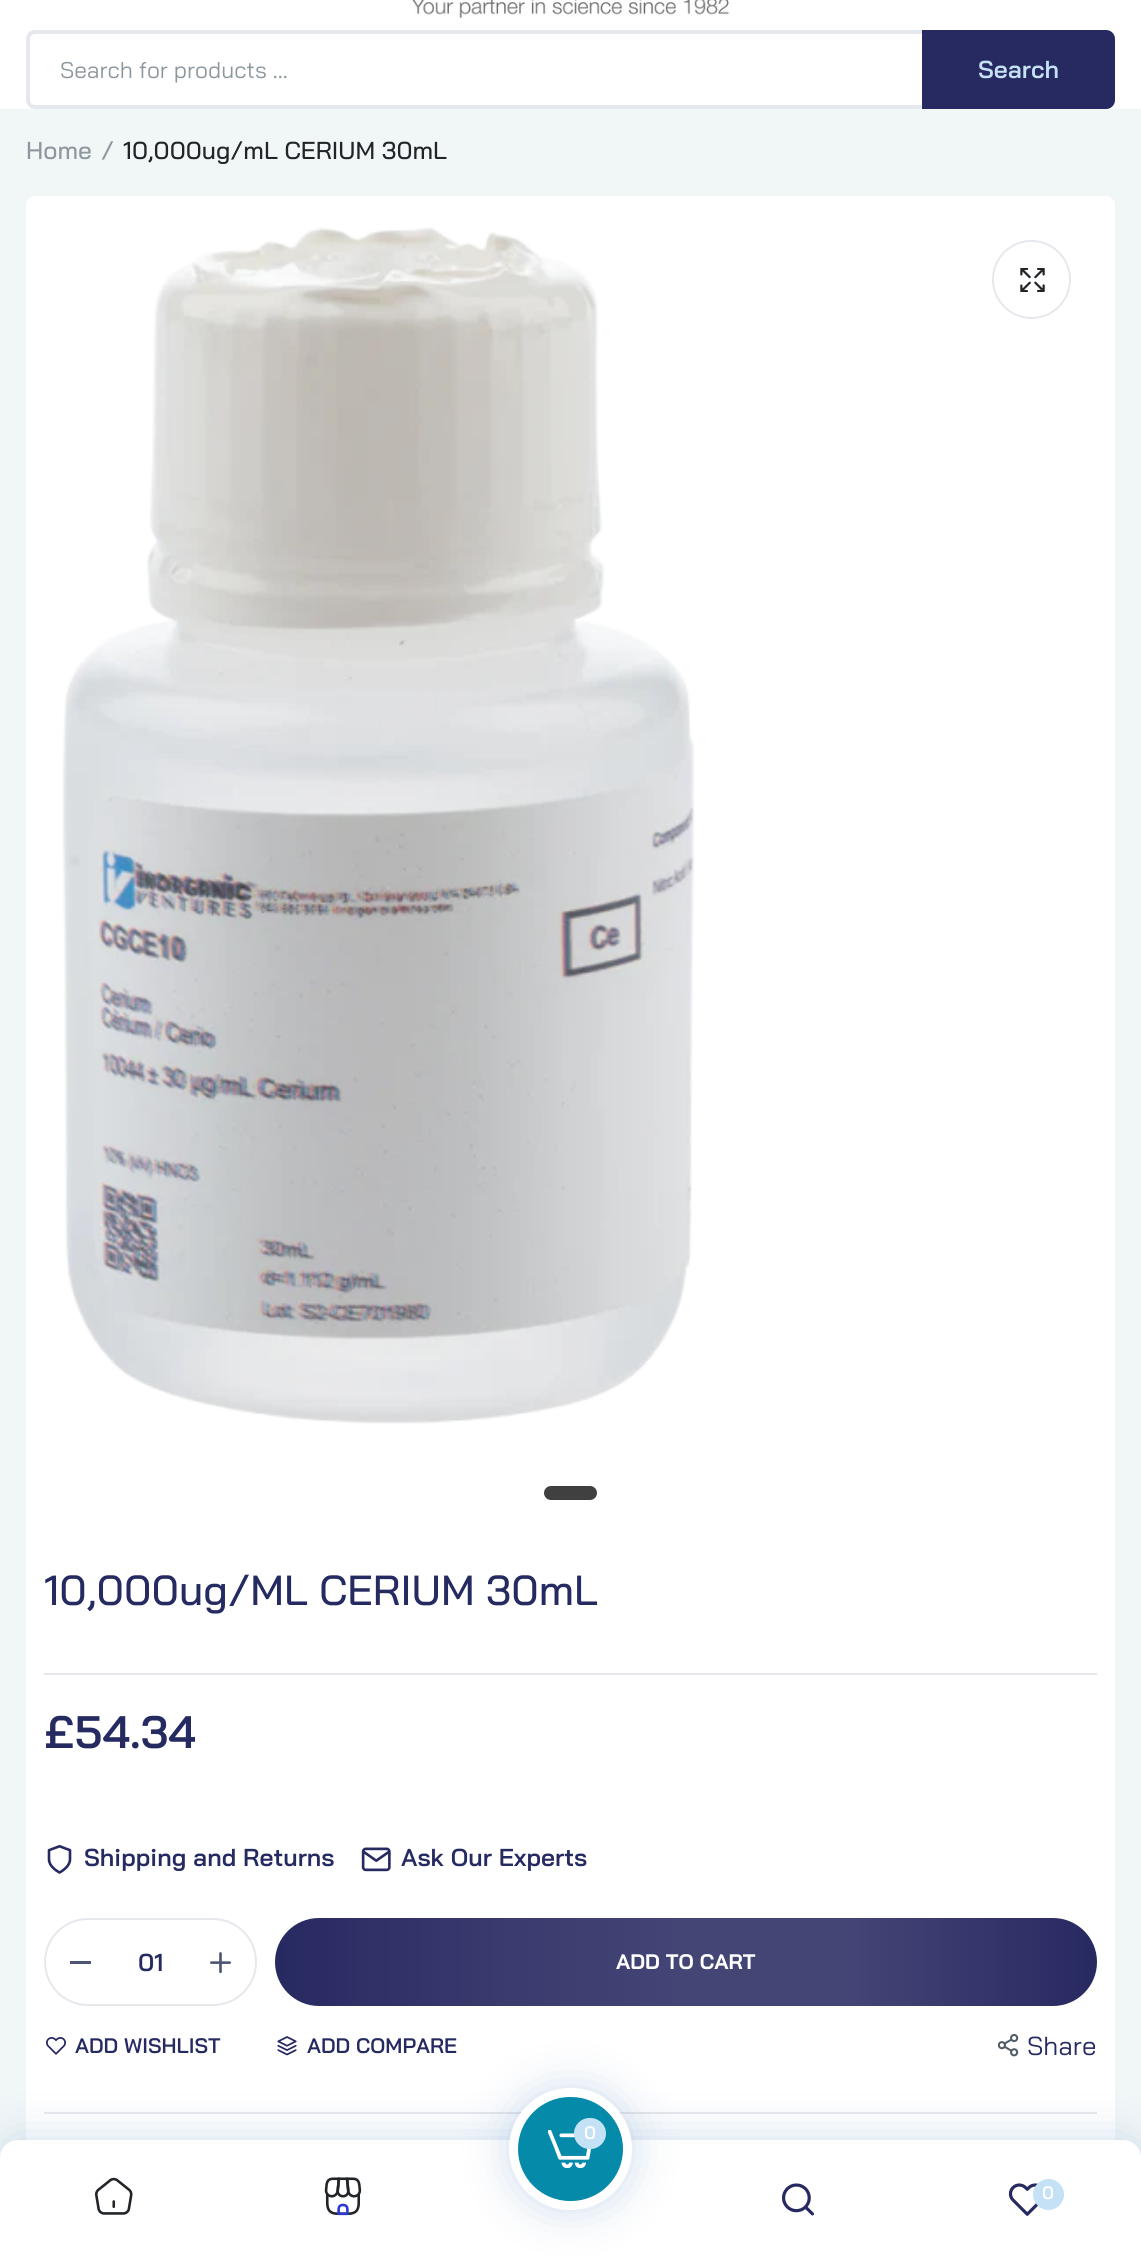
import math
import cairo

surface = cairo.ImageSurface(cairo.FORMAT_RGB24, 1141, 2256)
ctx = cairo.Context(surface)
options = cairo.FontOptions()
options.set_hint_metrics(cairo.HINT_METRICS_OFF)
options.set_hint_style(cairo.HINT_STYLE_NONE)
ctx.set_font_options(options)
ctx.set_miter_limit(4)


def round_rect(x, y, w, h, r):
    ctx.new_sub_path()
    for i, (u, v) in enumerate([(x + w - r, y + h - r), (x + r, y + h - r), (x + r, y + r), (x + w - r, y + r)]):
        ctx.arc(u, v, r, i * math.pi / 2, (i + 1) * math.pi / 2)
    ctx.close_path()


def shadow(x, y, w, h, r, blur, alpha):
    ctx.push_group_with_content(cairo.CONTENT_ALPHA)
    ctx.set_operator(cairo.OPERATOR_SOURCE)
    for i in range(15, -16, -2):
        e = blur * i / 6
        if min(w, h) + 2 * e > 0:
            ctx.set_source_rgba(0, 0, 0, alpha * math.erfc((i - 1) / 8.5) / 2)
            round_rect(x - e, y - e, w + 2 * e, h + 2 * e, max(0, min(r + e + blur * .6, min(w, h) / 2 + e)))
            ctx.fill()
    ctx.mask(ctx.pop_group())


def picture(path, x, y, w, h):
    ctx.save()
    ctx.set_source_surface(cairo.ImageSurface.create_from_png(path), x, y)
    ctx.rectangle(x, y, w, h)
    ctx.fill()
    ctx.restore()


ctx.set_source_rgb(0.945, 0.961, 0.965)
ctx.paint()
ctx.set_source_rgb(1, 1, 1)
ctx.rectangle(0, 0, 1141, 109)
ctx.fill()
picture("img1.png", 412, 0, 318, 18)
round_rect(28, 32, 1085, 75, 7)
ctx.set_source_rgb(0.898, 0.91, 0.925)
ctx.set_line_width(4)
ctx.stroke()
ctx.select_font_face("Bai Jamjuree")
ctx.set_font_size(22.75)
ctx.set_source_rgb(0.553, 0.592, 0.62)
ctx.move_to(60, 78)
ctx.show_text("Search for products ...")
ctx.set_source_rgb(0.153, 0.161, 0.38)
ctx.new_path()
ctx.move_to(922, 30)
ctx.line_to(1106, 30)
ctx.curve_to(1111, 30, 1115, 34, 1115, 39)
ctx.line_to(1115, 100)
ctx.curve_to(1115, 105, 1111, 109, 1106, 109)
ctx.line_to(922, 109)
ctx.close_path()
ctx.fill()
ctx.select_font_face("Bai Jamjuree SemiBold")
ctx.set_font_size(24.5)
ctx.set_source_rgb(0.773, 0.882, 0.961)
ctx.move_to(978, 78)
ctx.show_text("Search")
ctx.select_font_face("Bai Jamjuree Medium")
ctx.set_source_rgb(0.553, 0.592, 0.62)
ctx.move_to(26, 159)
ctx.show_text("Home")
ctx.move_to(101, 159)
ctx.show_text("/")
ctx.set_source_rgb(0.129, 0.145, 0.161)
ctx.move_to(123, 159)
ctx.show_text("10,000ug/mL CERIUM 30mL")
ctx.set_source_rgb(1, 1, 1)
round_rect(26, 196, 1089, 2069, 9)
ctx.fill()
picture("img2.png", 62, 227, 633, 1197)
ctx.set_source_rgb(0.251, 0.251, 0.251)
round_rect(544, 1486, 53, 14, 7)
ctx.fill()
ctx.arc(1031.5, 279.5, 38.5, 0, 2 * math.pi)
ctx.set_source_rgb(0.898, 0.91, 0.925)
ctx.set_line_width(2)
ctx.stroke()
picture("img3.png", 1020, 268, 25, 24)
ctx.set_font_size(42)
ctx.set_source_rgb(0.145, 0.165, 0.38)
ctx.move_to(44, 1605)
ctx.show_text("10,000ug/ML CERIUM 30mL")
ctx.set_source_rgb(0.898, 0.91, 0.925)
ctx.rectangle(44, 1673, 1053, 2)
ctx.fill()
ctx.select_font_face("Bai Jamjuree SemiBold")
ctx.set_font_size(45.5)
ctx.set_source_rgb(0.145, 0.165, 0.38)
ctx.move_to(44, 1748)
ctx.show_text("£54.34")
picture("img4.png", 47, 1845, 25, 29)
ctx.set_font_size(24.5)
ctx.move_to(84, 1866)
ctx.show_text("Shipping and Returns")
picture("img5.png", 361, 1847, 30, 25)
ctx.move_to(401, 1866)
ctx.show_text("Ask Our Experts")
round_rect(45, 1919, 211, 86, 43)
ctx.set_source_rgb(0.898, 0.91, 0.925)
ctx.stroke()
ctx.set_source_rgb(0.302, 0.333, 0.455)
ctx.rectangle(70, 1961, 21, 3)
ctx.fill()
ctx.set_source_rgb(0.145, 0.165, 0.38)
ctx.move_to(138, 1971)
ctx.show_text("01")
picture("img6.png", 210, 1952, 21, 22)
ctx.set_source_rgb(0.153, 0.161, 0.38)
round_rect(275, 1918, 822, 88, 44)
ctx.fill()
gradient = cairo.LinearGradient(271, 1962, 1094, 1962)
gradient.add_color_stop_rgba(0, 1, 1, 1, 0)
gradient.add_color_stop_rgba(0.01, 1, 1, 1, 0)
gradient.add_color_stop_rgba(0.3, 1, 1, 1, 0.09)
gradient.add_color_stop_rgba(0.5, 1, 1, 1, 0.13)
gradient.add_color_stop_rgba(0.71, 1, 1, 1, 0.13)
gradient.add_color_stop_rgba(1, 1, 1, 1, 0)
ctx.set_source(gradient)
ctx.new_path()
ctx.move_to(282, 1918)
ctx.line_to(267, 2006)
ctx.line_to(1086, 2006)
ctx.line_to(1101, 1918)
ctx.close_path()
ctx.fill()
ctx.select_font_face("Bai Jamjuree", cairo.FONT_SLANT_NORMAL, cairo.FONT_WEIGHT_BOLD)
ctx.set_font_size(21)
ctx.set_source_rgb(1, 1, 1)
ctx.move_to(616, 1969)
ctx.show_text("ADD TO CART")
ctx.set_source_rgb(0.898, 0.91, 0.925)
ctx.rectangle(44, 2112, 1053, 2)
ctx.fill()
picture("img7.png", 46, 2037, 20, 18)
ctx.select_font_face("Bai Jamjuree SemiBold")
ctx.set_source_rgb(0.145, 0.165, 0.38)
ctx.move_to(75, 2053)
ctx.show_text("ADD WISHLIST")
picture("img8.png", 277, 2036, 20, 20)
ctx.move_to(307, 2053)
ctx.show_text("ADD COMPARE")
picture("img9.png", 998, 2034, 21, 23)
ctx.select_font_face("Bai Jamjuree")
ctx.set_font_size(26)
ctx.move_to(1027, 2055)
ctx.show_text("Share")
ctx.set_source_rgb(0.282, 0.482, 0.718)
shadow(0, 2140, 1141, 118, 18, 22, 0.25)
ctx.set_source_rgb(1, 1, 1)
ctx.new_path()
ctx.move_to(18, 2140)
ctx.line_to(1123, 2140)
ctx.curve_to(1133, 2140, 1141, 2148, 1141, 2158)
ctx.line_to(1141, 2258)
ctx.line_to(0, 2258)
ctx.line_to(0, 2158)
ctx.curve_to(0, 2148, 8, 2140, 18, 2140)
ctx.close_path()
ctx.fill()
ctx.set_source_rgb(0.282, 0.482, 0.718)
shadow(509, 2088, 123, 122, 61, 22, 0.25)
ctx.set_source_rgb(0.02, 0.541, 0.667)
round_rect(513.5, 2092.5, 114, 113, 56.5)
ctx.fill_preserve()
ctx.set_source_rgb(1, 1, 1)
ctx.set_line_width(9)
ctx.stroke()
picture("img10.png", 548, 2130, 44, 38)
ctx.set_source_rgb(0.773, 0.882, 0.961)
round_rect(574, 2118, 32, 31, 15.5)
ctx.fill()
ctx.select_font_face("Bai Jamjuree SemiBold")
ctx.set_font_size(18)
ctx.set_source_rgb(1, 1, 1)
ctx.move_to(584, 2139)
ctx.show_text("0")
picture("img11.png", 95, 2177, 38, 38)
picture("img12.png", 324, 2177, 38, 39)
picture("img13.png", 782, 2183, 32, 33)
picture("img14.png", 1008, 2183, 31, 33)
ctx.set_source_rgb(0.773, 0.882, 0.961)
ctx.arc(1048.5, 2194.5, 15.5, 0, 2 * math.pi)
ctx.fill()
ctx.set_source_rgb(1, 1, 1)
ctx.move_to(1042, 2199)
ctx.show_text("0")
surface.write_to_png("page.png")
